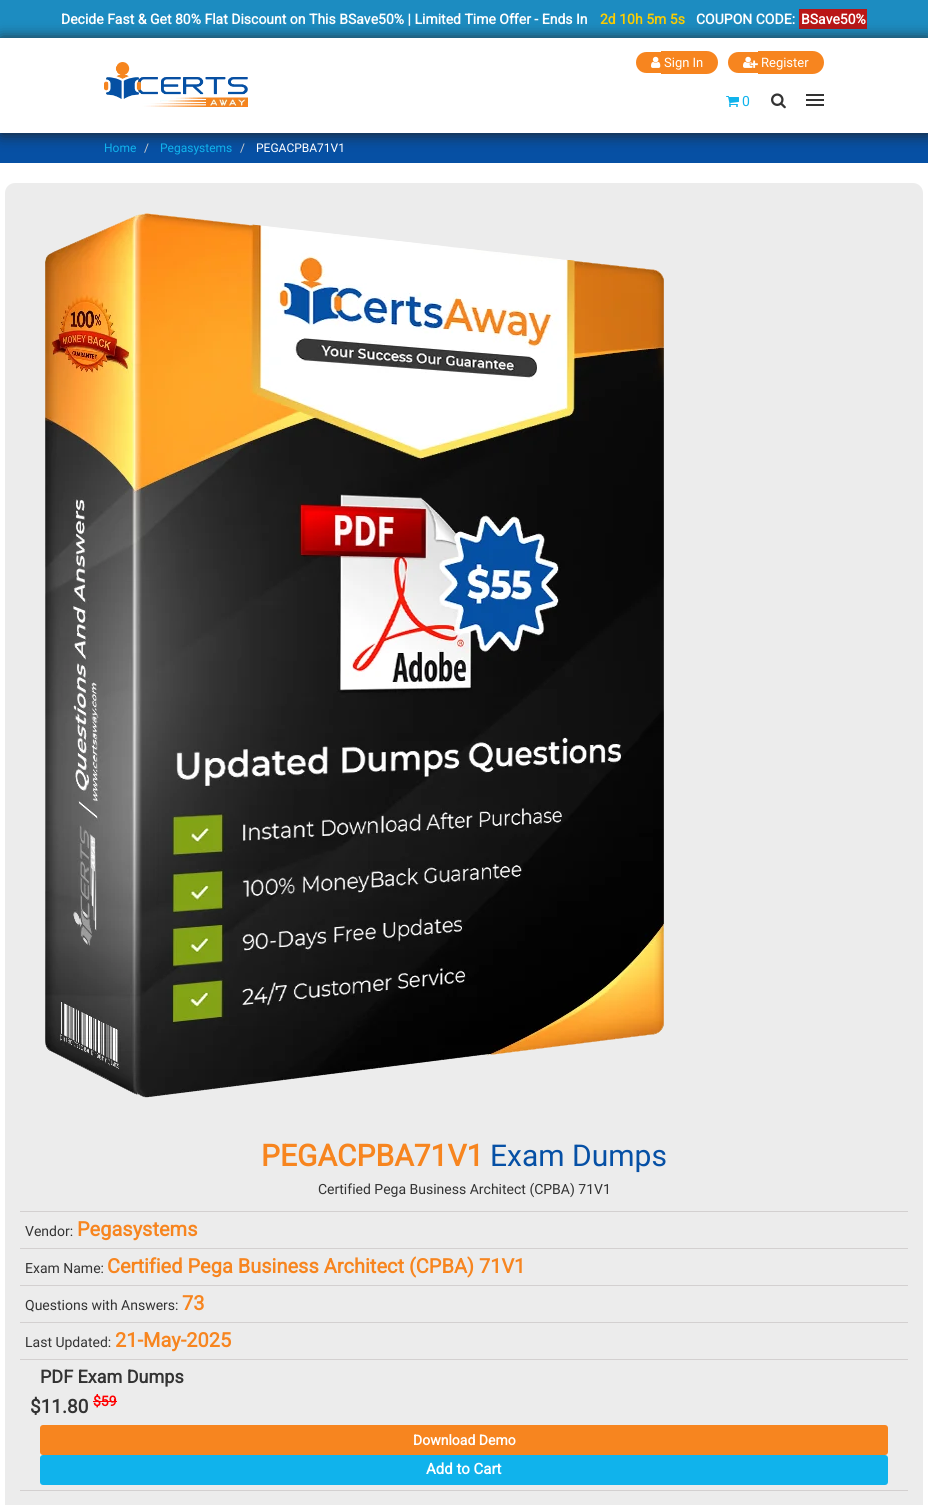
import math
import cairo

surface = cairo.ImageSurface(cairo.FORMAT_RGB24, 928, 1505)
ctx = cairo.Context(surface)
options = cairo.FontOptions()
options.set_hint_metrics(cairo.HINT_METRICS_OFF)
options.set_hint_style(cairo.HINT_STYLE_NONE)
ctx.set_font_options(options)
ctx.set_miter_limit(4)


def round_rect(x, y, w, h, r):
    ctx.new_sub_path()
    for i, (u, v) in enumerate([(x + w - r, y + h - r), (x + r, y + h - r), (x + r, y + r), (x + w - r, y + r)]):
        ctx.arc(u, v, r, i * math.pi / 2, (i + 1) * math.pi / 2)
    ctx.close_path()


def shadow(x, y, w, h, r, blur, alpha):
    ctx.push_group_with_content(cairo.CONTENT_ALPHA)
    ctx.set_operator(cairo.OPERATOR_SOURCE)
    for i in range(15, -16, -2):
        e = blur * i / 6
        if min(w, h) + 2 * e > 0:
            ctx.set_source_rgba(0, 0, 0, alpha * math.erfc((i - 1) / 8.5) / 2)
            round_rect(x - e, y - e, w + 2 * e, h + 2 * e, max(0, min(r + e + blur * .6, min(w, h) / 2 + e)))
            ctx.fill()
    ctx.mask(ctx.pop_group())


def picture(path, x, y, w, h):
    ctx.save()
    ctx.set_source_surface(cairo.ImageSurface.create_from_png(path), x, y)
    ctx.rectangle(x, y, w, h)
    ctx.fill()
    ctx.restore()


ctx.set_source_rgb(1, 1, 1)
ctx.paint()
ctx.set_source_rgb(0.11, 0.549, 0.757)
ctx.rectangle(0, 0, 928, 38)
ctx.fill()
ctx.select_font_face("Roboto", cairo.FONT_SLANT_NORMAL, cairo.FONT_WEIGHT_BOLD)
ctx.set_font_size(14)
ctx.set_source_rgb(1, 1, 1)
ctx.move_to(61, 24)
ctx.show_text("Decide Fast & Get 80% Flat Discount on This BSave50% | Limited Time Offer - Ends In")
ctx.set_source_rgb(0.992, 0.804, 0)
ctx.move_to(600, 24)
ctx.show_text("2d 10h 5m 5s")
ctx.set_source_rgb(1, 1, 1)
ctx.move_to(696, 24)
ctx.show_text("COUPON CODE:")
ctx.set_source_rgb(0.729, 0.086, 0.086)
ctx.rectangle(799, 9, 68, 20)
ctx.fill()
ctx.set_source_rgb(1, 1, 1)
ctx.move_to(801, 24)
ctx.show_text("BSave50%")
ctx.set_source_rgb(0.024, 0.314, 0.643)
ctx.rectangle(0, 133, 928, 30)
ctx.fill()
ctx.save()
ctx.set_fill_rule(cairo.FILL_RULE_EVEN_ODD)
ctx.new_path()
ctx.move_to(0, 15)
ctx.line_to(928, 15)
ctx.line_to(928, 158)
ctx.line_to(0, 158)
ctx.close_path()
ctx.move_to(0, 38)
ctx.line_to(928, 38)
ctx.line_to(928, 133)
ctx.line_to(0, 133)
ctx.close_path()
ctx.clip()
ctx.set_source_rgb(0.133, 0.133, 0.133)
shadow(1, 39, 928, 95, 0, 7.5, 1)
ctx.restore()
ctx.set_source_rgb(0.965, 0.522, 0.122)
ctx.new_path()
ctx.move_to(646.5, 52)
ctx.line_to(661, 52)
ctx.line_to(661, 73)
ctx.line_to(646.5, 73)
ctx.curve_to(640.5, 73, 636, 68.5, 636, 62.5)
ctx.curve_to(636, 56.5, 640.5, 52, 646.5, 52)
ctx.close_path()
ctx.fill()
ctx.new_path()
ctx.move_to(661, 51)
ctx.line_to(706.5, 51)
ctx.curve_to(713, 51, 718, 56, 718, 62.5)
ctx.curve_to(718, 69, 713, 74, 706.5, 74)
ctx.line_to(661, 74)
ctx.close_path()
ctx.fill()
picture("img1.png", 651, 56, 10, 12)
ctx.select_font_face("Roboto")
ctx.set_font_size(13)
ctx.set_source_rgb(1, 1, 1)
ctx.move_to(664, 67)
ctx.show_text("Sign In")
ctx.set_source_rgb(0.965, 0.522, 0.122)
ctx.new_path()
ctx.move_to(738.5, 52)
ctx.line_to(758, 52)
ctx.line_to(758, 73)
ctx.line_to(738.5, 73)
ctx.curve_to(732.5, 73, 728, 68.5, 728, 62.5)
ctx.curve_to(728, 56.5, 732.5, 52, 738.5, 52)
ctx.close_path()
ctx.fill()
ctx.new_path()
ctx.move_to(758, 51)
ctx.line_to(812.5, 51)
ctx.curve_to(819, 51, 824, 56, 824, 62.5)
ctx.curve_to(824, 69, 819, 74, 812.5, 74)
ctx.line_to(758, 74)
ctx.close_path()
ctx.fill()
picture("img2.png", 743, 56, 15, 12)
ctx.set_source_rgb(1, 1, 1)
ctx.move_to(761, 67)
ctx.show_text("Register")
picture("img3.png", 104, 62, 144, 45)
picture("img4.png", 726, 96, 13, 11)
ctx.set_font_size(14)
ctx.set_source_rgb(0.063, 0.702, 0.925)
ctx.move_to(742, 106)
ctx.show_text("0")
picture("img5.png", 771, 93, 15, 16)
ctx.set_source_rgb(0.2, 0.2, 0.2)
ctx.rectangle(806, 94, 18, 2)
ctx.fill()
ctx.rectangle(806, 99, 18, 2)
ctx.fill()
ctx.rectangle(806, 104, 18, 2)
ctx.fill()
ctx.set_font_size(12)
ctx.set_source_rgb(0.063, 0.702, 0.925)
ctx.move_to(104, 152)
ctx.show_text("Home")
ctx.set_source_rgb(0.8, 0.8, 0.8)
ctx.move_to(144, 152)
ctx.show_text("/")
ctx.set_source_rgb(0.063, 0.702, 0.925)
ctx.move_to(160, 152)
ctx.show_text("Pegasystems")
ctx.set_source_rgb(0.8, 0.8, 0.8)
ctx.move_to(240, 152)
ctx.show_text("/")
ctx.set_source_rgb(1, 1, 1)
ctx.move_to(256, 152)
ctx.show_text("PEGACPBA71V1")
ctx.set_source_rgb(0.925, 0.922, 0.922)
round_rect(5, 183, 918, 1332, 10)
ctx.fill()
picture("img6.png", 45, 213, 619, 885)
ctx.select_font_face("Roboto", cairo.FONT_SLANT_NORMAL, cairo.FONT_WEIGHT_BOLD)
ctx.set_font_size(30)
ctx.set_source_rgb(0.965, 0.522, 0.122)
ctx.move_to(261, 1166)
ctx.show_text("PEGACPBA71V1")
ctx.select_font_face("Roboto")
ctx.set_source_rgb(0.024, 0.314, 0.647)
ctx.move_to(490, 1166)
ctx.show_text("Exam Dumps")
ctx.set_font_size(14)
ctx.set_source_rgb(0.2, 0.2, 0.2)
ctx.move_to(318, 1194)
ctx.show_text("Certified Pega Business Architect (CPBA) 71V1")
ctx.set_source_rgb(0.827, 0.816, 0.816)
ctx.rectangle(20, 1211, 888, 1)
ctx.fill()
ctx.set_source_rgb(0.2, 0.2, 0.2)
ctx.move_to(25, 1236)
ctx.show_text("Vendor:")
ctx.select_font_face("Roboto", cairo.FONT_SLANT_NORMAL, cairo.FONT_WEIGHT_BOLD)
ctx.set_font_size(20)
ctx.set_source_rgb(0.965, 0.522, 0.122)
ctx.move_to(77, 1236)
ctx.show_text("Pegasystems")
ctx.set_source_rgb(0.827, 0.816, 0.816)
ctx.rectangle(20, 1248, 888, 1)
ctx.fill()
ctx.select_font_face("Roboto")
ctx.set_font_size(14)
ctx.set_source_rgb(0.2, 0.2, 0.2)
ctx.move_to(25, 1273)
ctx.show_text("Exam Name:")
ctx.select_font_face("Roboto", cairo.FONT_SLANT_NORMAL, cairo.FONT_WEIGHT_BOLD)
ctx.set_font_size(20)
ctx.set_source_rgb(0.965, 0.522, 0.122)
ctx.move_to(107, 1273)
ctx.show_text("Certified Pega Business Architect (CPBA) 71V1")
ctx.set_source_rgb(0.827, 0.816, 0.816)
ctx.rectangle(20, 1285, 888, 1)
ctx.fill()
ctx.select_font_face("Roboto")
ctx.set_font_size(14)
ctx.set_source_rgb(0.2, 0.2, 0.2)
ctx.move_to(25, 1310)
ctx.show_text("Questions with Answers:")
ctx.select_font_face("Roboto", cairo.FONT_SLANT_NORMAL, cairo.FONT_WEIGHT_BOLD)
ctx.set_font_size(20)
ctx.set_source_rgb(0.965, 0.522, 0.122)
ctx.move_to(182, 1310)
ctx.show_text("73")
ctx.set_source_rgb(0.827, 0.816, 0.816)
ctx.rectangle(20, 1322, 888, 1)
ctx.fill()
ctx.select_font_face("Roboto")
ctx.set_font_size(14)
ctx.set_source_rgb(0.2, 0.2, 0.2)
ctx.move_to(25, 1347)
ctx.show_text("Last Updated:")
ctx.select_font_face("Roboto", cairo.FONT_SLANT_NORMAL, cairo.FONT_WEIGHT_BOLD)
ctx.set_font_size(20)
ctx.set_source_rgb(0.965, 0.522, 0.122)
ctx.move_to(115, 1347)
ctx.show_text("21-May-2025")
ctx.set_source_rgb(0.827, 0.816, 0.816)
ctx.rectangle(20, 1359, 888, 1)
ctx.fill()
ctx.set_font_size(18)
ctx.set_source_rgb(0.2, 0.2, 0.2)
ctx.move_to(40, 1383)
ctx.show_text("PDF Exam Dumps")
ctx.set_font_size(19)
ctx.move_to(30, 1413)
ctx.show_text("$11.80")
ctx.set_font_size(14)
ctx.set_source_rgb(1, 0, 0)
ctx.move_to(93, 1406)
ctx.show_text("$59")
ctx.rectangle(93, 1401, 24, 1)
ctx.fill()
ctx.set_source_rgb(0.965, 0.522, 0.122)
round_rect(40, 1425, 848, 30, 3)
ctx.fill()
ctx.set_source_rgb(1, 1, 1)
ctx.move_to(413, 1445)
ctx.show_text("Download Demo")
ctx.set_source_rgb(0.063, 0.702, 0.925)
round_rect(40, 1455, 848, 30, 3)
ctx.fill()
ctx.set_font_size(15)
ctx.set_source_rgb(1, 1, 1)
ctx.move_to(426, 1474)
ctx.show_text("Add to Cart")
ctx.set_source_rgb(0.827, 0.816, 0.816)
ctx.rectangle(20, 1490, 888, 1)
ctx.fill()
surface.write_to_png("page.png")
